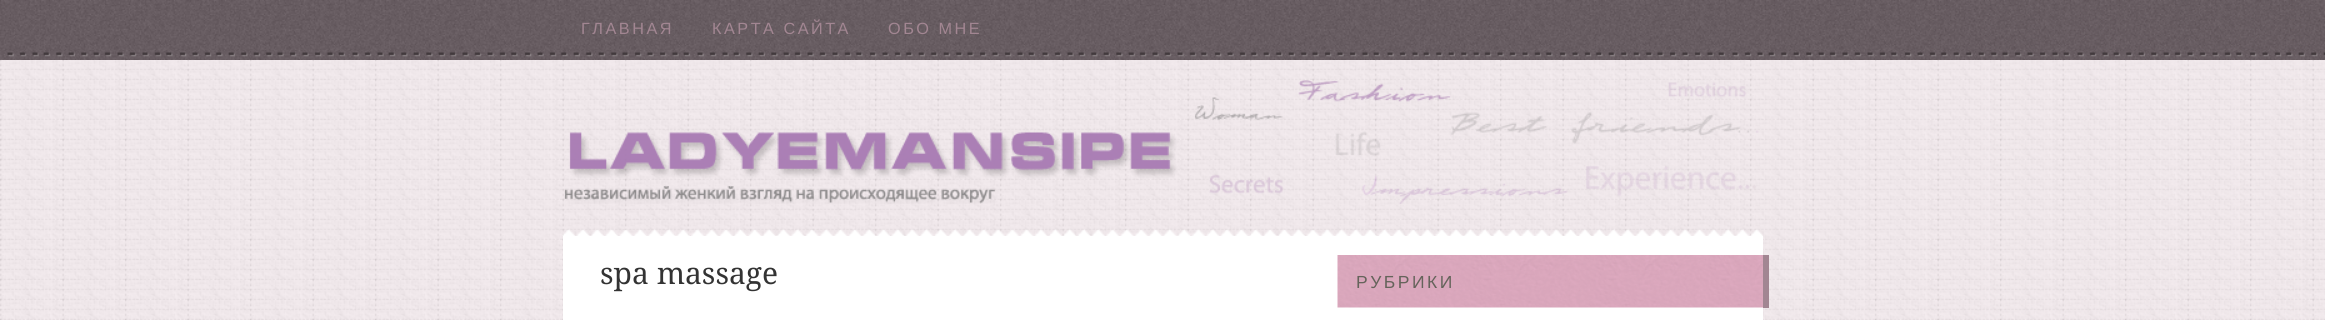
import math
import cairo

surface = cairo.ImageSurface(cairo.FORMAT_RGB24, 2325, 320)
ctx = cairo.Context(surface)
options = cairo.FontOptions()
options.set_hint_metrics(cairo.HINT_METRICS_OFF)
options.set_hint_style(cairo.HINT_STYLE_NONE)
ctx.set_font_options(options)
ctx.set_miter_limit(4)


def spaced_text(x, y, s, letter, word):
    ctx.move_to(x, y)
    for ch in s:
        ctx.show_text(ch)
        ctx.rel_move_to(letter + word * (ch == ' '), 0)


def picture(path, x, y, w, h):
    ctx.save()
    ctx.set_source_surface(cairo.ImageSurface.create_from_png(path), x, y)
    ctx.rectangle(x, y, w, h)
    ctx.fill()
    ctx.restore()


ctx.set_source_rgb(1, 1, 1)
ctx.paint()
picture("img1.png", 0, 60, 2325, 260)
picture("img2.png", 0, 0, 2325, 60)
ctx.select_font_face("Liberation Sans")
ctx.set_font_size(16.25)
ctx.set_source_rgb(0.635, 0.525, 0.573)
spaced_text(581, 34, "ГЛАВНАЯ", 2.5, 0)
spaced_text(712, 34, "КАРТА САЙТА", 2.5, 0)
spaced_text(888, 34, "ОБО МНЕ", 2.5, 0)
picture("img3.png", 564, 80, 1195, 124)
picture("img4.png", 562, 229, 1201, 8)
ctx.set_source_rgb(1, 1, 1)
ctx.rectangle(563, 236, 1200, 84)
ctx.fill()
ctx.select_font_face("Droid Serif")
ctx.set_font_size(30)
ctx.set_source_rgb(0.2, 0.2, 0.2)
ctx.move_to(600, 284)
ctx.show_text("spa massage")
picture("img5.png", 1337, 255, 426, 53)
ctx.set_source_rgb(0.635, 0.525, 0.573)
ctx.rectangle(1763, 255, 6, 53)
ctx.fill()
ctx.select_font_face("Liberation Sans")
ctx.set_font_size(17.5)
ctx.set_source_rgb(0.396, 0.388, 0.357)
spaced_text(1356, 288, "РУБРИКИ", 2.5, 0)
surface.write_to_png("page.png")
